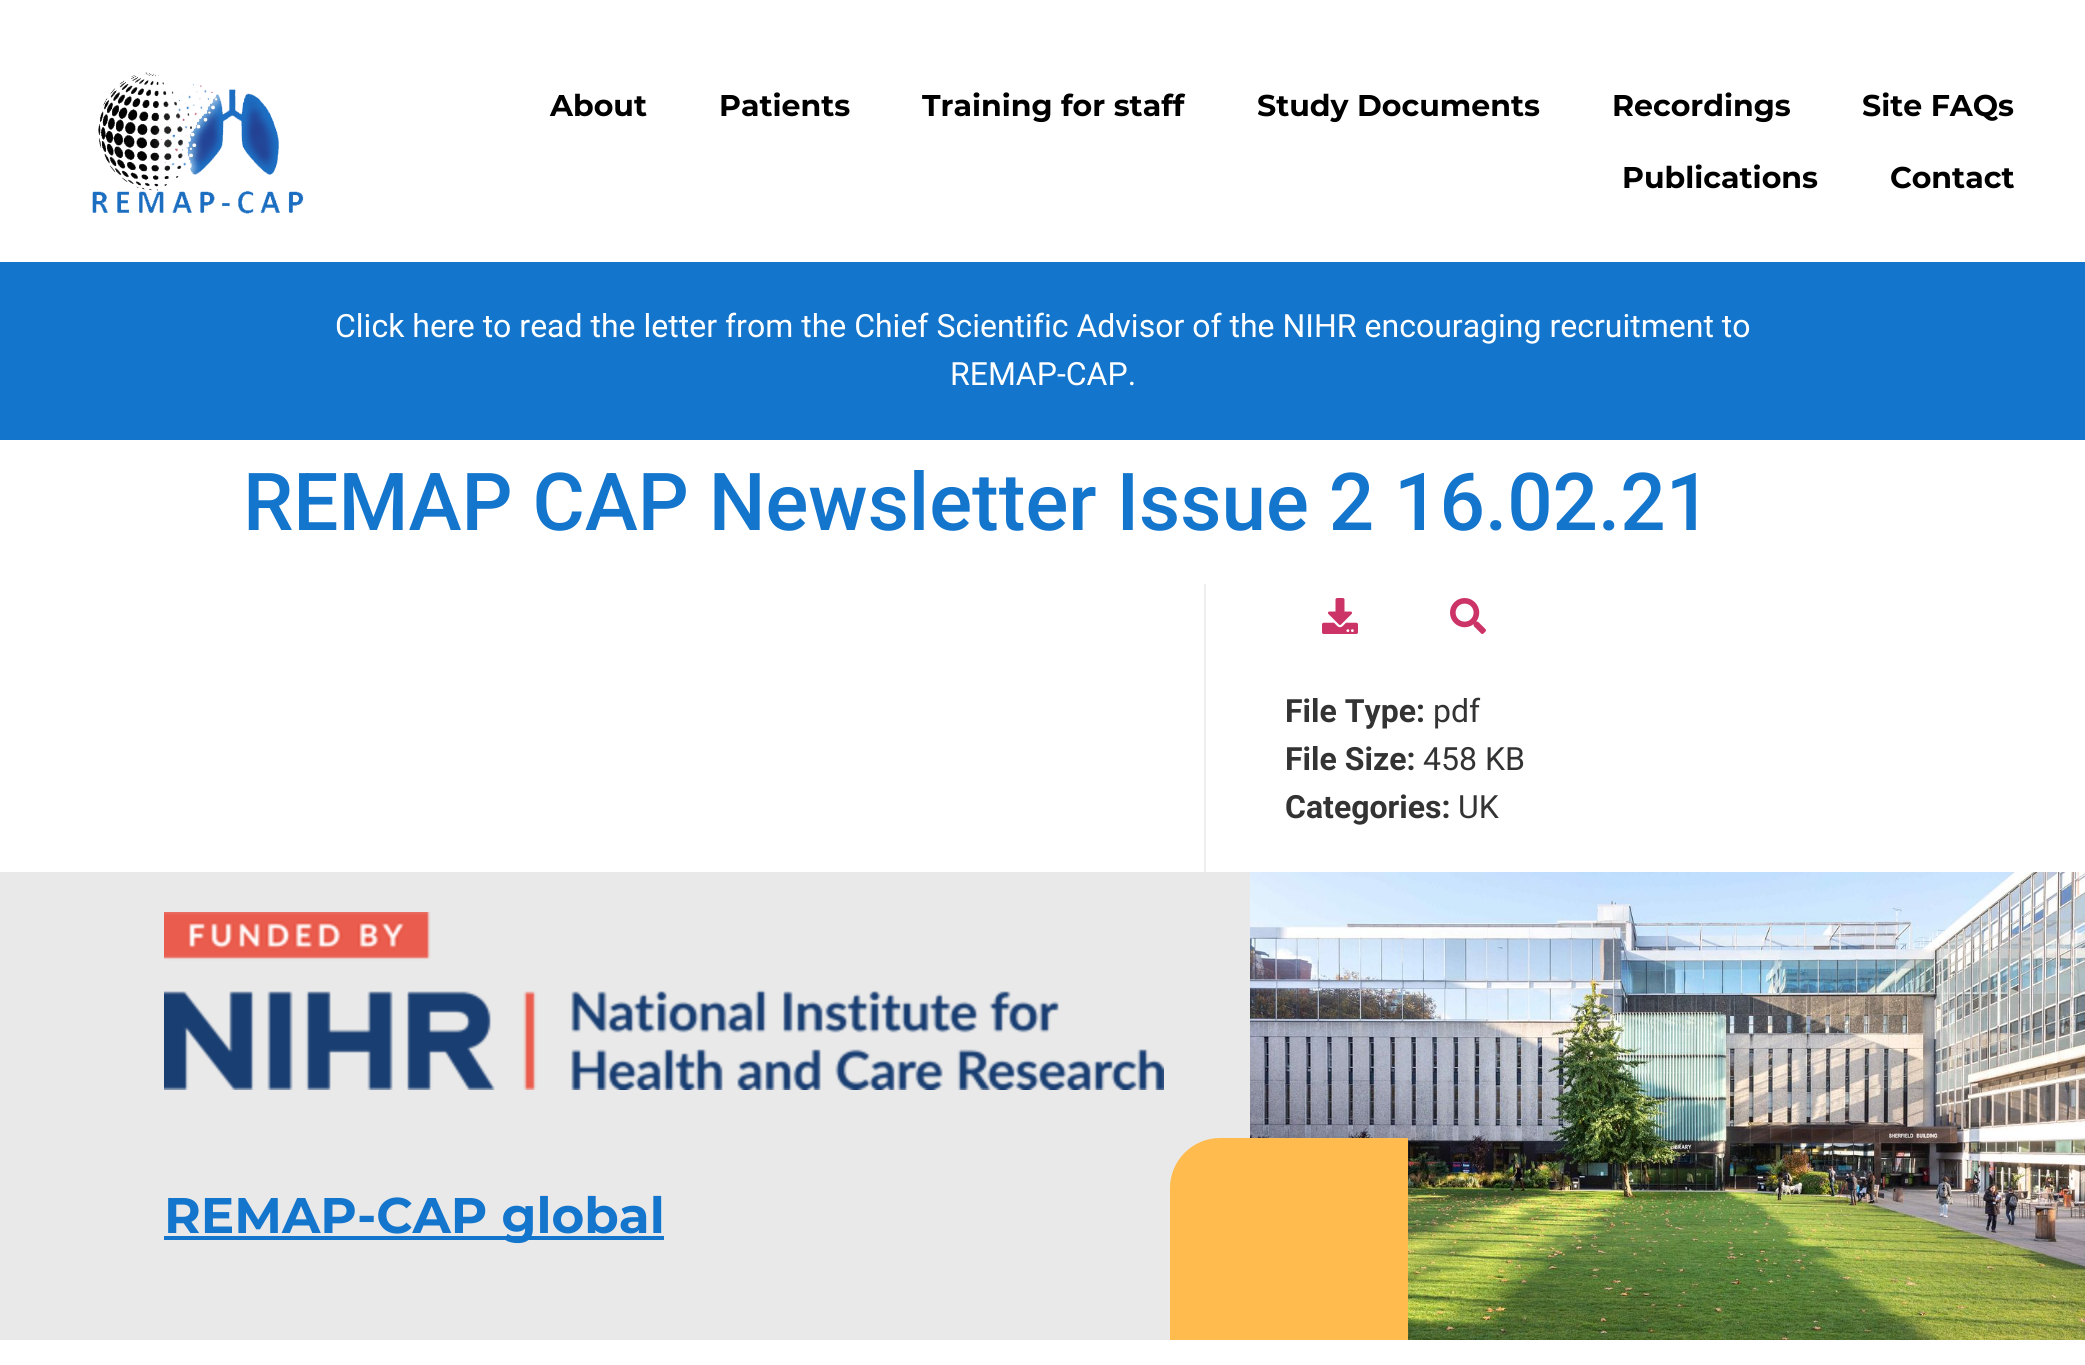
import math
import cairo

surface = cairo.ImageSurface(cairo.FORMAT_RGB24, 2085, 1365)
ctx = cairo.Context(surface)
options = cairo.FontOptions()
options.set_hint_metrics(cairo.HINT_METRICS_OFF)
options.set_hint_style(cairo.HINT_STYLE_NONE)
ctx.set_font_options(options)
ctx.set_miter_limit(4)


def picture(path, x, y, w, h):
    ctx.save()
    ctx.set_source_surface(cairo.ImageSurface.create_from_png(path), x, y)
    ctx.rectangle(x, y, w, h)
    ctx.fill()
    ctx.restore()


ctx.set_source_rgb(1, 1, 1)
ctx.paint()
picture("img1.png", 92, 72, 212, 142)
ctx.select_font_face("Montserrat", cairo.FONT_SLANT_NORMAL, cairo.FONT_WEIGHT_BOLD)
ctx.set_font_size(30)
ctx.set_source_rgb(0, 0, 0)
ctx.move_to(550, 116)
ctx.show_text("About")
ctx.move_to(719, 116)
ctx.show_text("Patients")
ctx.move_to(922, 116)
ctx.show_text("Training for staff")
ctx.move_to(1257, 116)
ctx.show_text("Study Documents")
ctx.move_to(1612, 116)
ctx.show_text("Recordings")
ctx.move_to(1862, 116)
ctx.show_text("Site FAQs")
ctx.move_to(1622, 188)
ctx.show_text("Publications")
ctx.move_to(1890, 188)
ctx.show_text("Contact")
ctx.set_source_rgb(0.078, 0.459, 0.8)
ctx.rectangle(0, 262, 2085, 178)
ctx.fill()
ctx.select_font_face("Roboto")
ctx.set_font_size(32)
ctx.set_source_rgb(1, 1, 1)
ctx.move_to(335, 337)
ctx.show_text("Click here to read the letter from the Chief Scientific Advisor of the NIHR encouraging recruitment to")
ctx.move_to(950, 385)
ctx.show_text("REMAP-CAP.")
ctx.select_font_face("Roboto Medium")
ctx.set_font_size(80)
ctx.set_source_rgb(0.078, 0.459, 0.8)
ctx.move_to(243, 530)
ctx.show_text("REMAP CAP Newsletter Issue 2 16.02.21")
ctx.set_source_rgb(0.933, 0.933, 0.933)
ctx.rectangle(1204, 584, 2, 288)
ctx.fill()
picture("img2.png", 1322, 598, 36, 36)
picture("img3.png", 1450, 598, 36, 36)
ctx.select_font_face("Roboto", cairo.FONT_SLANT_NORMAL, cairo.FONT_WEIGHT_BOLD)
ctx.set_font_size(32)
ctx.set_source_rgb(0.2, 0.2, 0.2)
ctx.move_to(1285, 722)
ctx.show_text("File Type:")
ctx.select_font_face("Roboto")
ctx.move_to(1433, 722)
ctx.show_text("pdf")
ctx.select_font_face("Roboto", cairo.FONT_SLANT_NORMAL, cairo.FONT_WEIGHT_BOLD)
ctx.move_to(1285, 770)
ctx.show_text("File Size:")
ctx.select_font_face("Roboto")
ctx.move_to(1423, 770)
ctx.show_text("458 KB")
ctx.select_font_face("Roboto", cairo.FONT_SLANT_NORMAL, cairo.FONT_WEIGHT_BOLD)
ctx.move_to(1285, 818)
ctx.show_text("Categories:")
ctx.select_font_face("Roboto")
ctx.move_to(1458, 818)
ctx.show_text("UK")
ctx.set_source_rgb(0.914, 0.914, 0.914)
ctx.rectangle(0, 872, 1250, 468)
ctx.fill()
picture("img4.png", 164, 912, 1000, 178)
ctx.set_source_rgb(0.078, 0.459, 0.8)
ctx.rectangle(164, 1236, 500, 4)
ctx.fill()
ctx.select_font_face("Montserrat", cairo.FONT_SLANT_NORMAL, cairo.FONT_WEIGHT_BOLD)
ctx.set_font_size(50)
ctx.move_to(164, 1233)
ctx.show_text("REMAP-CAP global")
picture("img5.png", 1250, 872, 835, 468)
ctx.set_source_rgb(1, 0.733, 0.306)
ctx.new_path()
ctx.move_to(1220, 1138)
ctx.line_to(1408, 1138)
ctx.line_to(1408, 1340)
ctx.line_to(1170, 1340)
ctx.line_to(1170, 1188)
ctx.curve_to(1170, 1160.5, 1192.5, 1138, 1220, 1138)
ctx.close_path()
ctx.fill()
surface.write_to_png("page.png")
